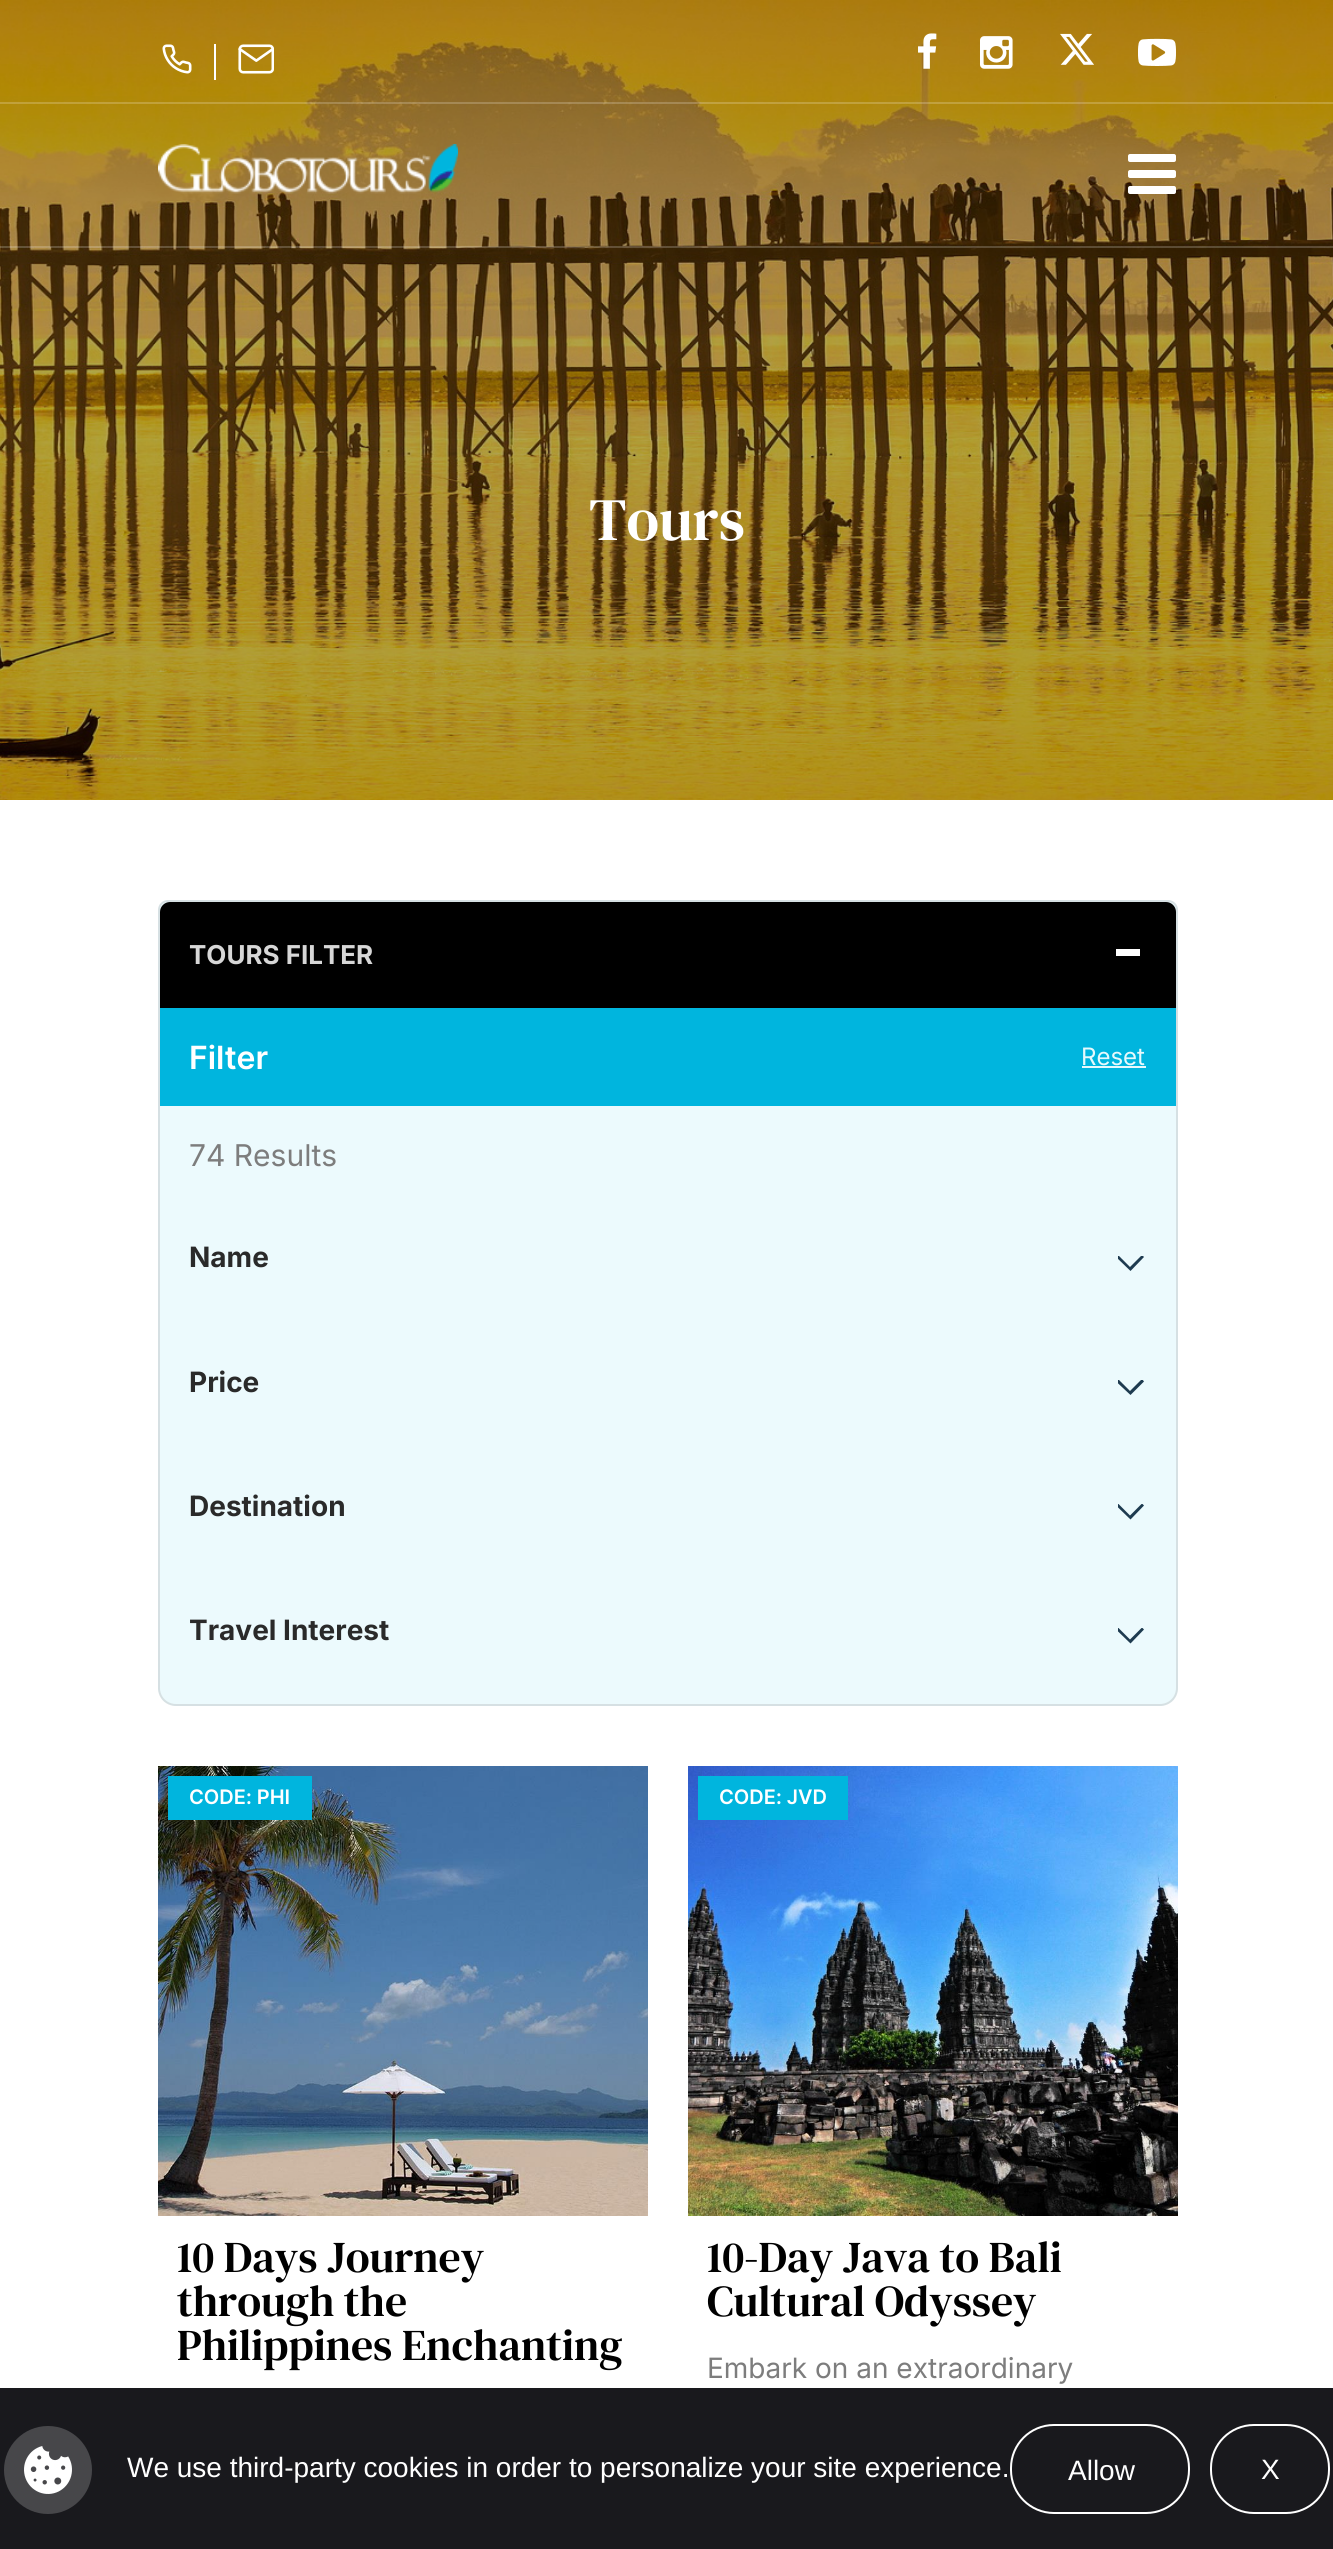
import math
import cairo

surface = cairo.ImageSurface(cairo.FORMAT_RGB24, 1333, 2549)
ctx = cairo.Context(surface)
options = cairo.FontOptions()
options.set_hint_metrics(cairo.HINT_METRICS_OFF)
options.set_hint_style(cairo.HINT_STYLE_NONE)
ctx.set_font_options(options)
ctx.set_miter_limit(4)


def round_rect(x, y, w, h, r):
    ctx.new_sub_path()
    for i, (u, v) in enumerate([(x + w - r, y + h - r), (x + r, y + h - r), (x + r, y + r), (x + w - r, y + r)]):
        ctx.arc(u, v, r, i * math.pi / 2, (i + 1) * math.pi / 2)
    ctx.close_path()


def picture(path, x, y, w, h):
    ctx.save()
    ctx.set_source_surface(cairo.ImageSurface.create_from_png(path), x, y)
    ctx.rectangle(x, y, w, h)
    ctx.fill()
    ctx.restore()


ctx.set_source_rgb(1, 1, 1)
ctx.paint()
picture("img9.png", 0, 0, 1333, 800)
picture("img1.png", 162, 44, 30, 30)
ctx.set_source_rgb(1, 1, 1)
ctx.rectangle(214, 44, 2, 36)
ctx.fill()
picture("img2.png", 238, 44, 36, 30)
picture("img3.png", 918, 33, 19, 36)
picture("img4.png", 980, 36, 33, 33)
picture("img5.png", 1060, 33, 34, 32)
picture("img6.png", 1138, 38, 38, 28)
ctx.set_source_rgba(1, 1, 1, 0.2)
ctx.rectangle(0, 102, 1333, 2)
ctx.fill()
ctx.rectangle(0, 246, 1333, 2)
ctx.fill()
picture("img7.png", 158, 144, 300, 50)
picture("img8.png", 1128, 154, 48, 40)
ctx.select_font_face("DM Serif Text")
ctx.set_font_size(60)
ctx.set_source_rgb(1, 1, 1)
ctx.move_to(589, 540)
ctx.show_text("Tours")
ctx.set_source_rgb(0.922, 0.98, 0.992)
ctx.new_path()
ctx.move_to(168, 900)
ctx.line_to(1168, 900)
ctx.curve_to(1173.5, 900, 1178, 904.5, 1178, 910)
ctx.line_to(1178, 1688)
ctx.curve_to(1178, 1698, 1170, 1706, 1160, 1706)
ctx.line_to(176, 1706)
ctx.curve_to(166, 1706, 158, 1698, 158, 1688)
ctx.line_to(158, 910)
ctx.curve_to(158, 904.5, 162.5, 900, 168, 900)
ctx.close_path()
ctx.fill()
ctx.new_path()
ctx.move_to(168, 901)
ctx.line_to(1168, 901)
ctx.curve_to(1173, 901, 1177, 905, 1177, 910)
ctx.line_to(1177, 1688)
ctx.curve_to(1177, 1697.5, 1169.5, 1705, 1160, 1705)
ctx.line_to(176, 1705)
ctx.curve_to(166.5, 1705, 159, 1697.5, 159, 1688)
ctx.line_to(159, 910)
ctx.curve_to(159, 905, 163, 901, 168, 901)
ctx.close_path()
ctx.set_source_rgba(0.592, 0.592, 0.592, 0.25)
ctx.stroke()
ctx.set_source_rgb(0, 0, 0)
ctx.new_path()
ctx.move_to(170, 902)
ctx.line_to(1166, 902)
ctx.curve_to(1171.5, 902, 1176, 906.5, 1176, 912)
ctx.line_to(1176, 1008)
ctx.line_to(160, 1008)
ctx.line_to(160, 912)
ctx.curve_to(160, 906.5, 164.5, 902, 170, 902)
ctx.close_path()
ctx.fill()
ctx.select_font_face("Inter", cairo.FONT_SLANT_NORMAL, cairo.FONT_WEIGHT_BOLD)
ctx.set_font_size(26)
ctx.set_source_rgb(0.843, 0.843, 0.843)
ctx.move_to(189, 964)
ctx.show_text("TOURS FILTER")
ctx.set_source_rgb(1, 1, 1)
ctx.rectangle(1116, 949, 24, 7)
ctx.fill()
ctx.set_source_rgb(0, 0.71, 0.871)
ctx.rectangle(160, 1008, 1016, 98)
ctx.fill()
ctx.select_font_face("Inter SemiBold")
ctx.set_font_size(32)
ctx.set_source_rgb(1, 1, 1)
ctx.move_to(189, 1069)
ctx.show_text("Filter")
ctx.select_font_face("Inter")
ctx.set_font_size(24)
ctx.set_source_rgb(0.902, 0.973, 0.988)
ctx.move_to(1081, 1065)
ctx.show_text("Reset")
ctx.rectangle(1082, 1066, 64, 2)
ctx.fill()
ctx.set_font_size(30)
ctx.set_source_rgb(0.49, 0.49, 0.49)
ctx.move_to(189, 1166)
ctx.show_text("74 Results")
ctx.select_font_face("Inter", cairo.FONT_SLANT_NORMAL, cairo.FONT_WEIGHT_BOLD)
ctx.set_font_size(28)
ctx.set_source_rgb(0.165, 0.165, 0.165)
ctx.move_to(189, 1267)
ctx.show_text("Name")
ctx.save()
ctx.rectangle(1118, 1256, 28, 16)
ctx.clip()
ctx.set_source_rgb(0.118, 0.231, 0.314)
ctx.new_path()
ctx.move_to(1144, 1257)
ctx.line_to(1142, 1255)
ctx.line_to(1130, 1267)
ctx.line_to(1118, 1255)
ctx.line_to(1116, 1257)
ctx.line_to(1130.5, 1271)
ctx.close_path()
ctx.fill()
ctx.restore()
ctx.move_to(189, 1392)
ctx.show_text("Price")
ctx.save()
ctx.rectangle(1118, 1380, 28, 16)
ctx.clip()
ctx.set_source_rgb(0.118, 0.231, 0.314)
ctx.new_path()
ctx.move_to(1144, 1381.5)
ctx.line_to(1142, 1379)
ctx.line_to(1130, 1391)
ctx.line_to(1118, 1379)
ctx.line_to(1116, 1381.5)
ctx.line_to(1130.5, 1395)
ctx.close_path()
ctx.fill()
ctx.restore()
ctx.move_to(189, 1516)
ctx.show_text("Destination")
ctx.save()
ctx.rectangle(1118, 1504, 28, 16)
ctx.clip()
ctx.set_source_rgb(0.118, 0.231, 0.314)
ctx.new_path()
ctx.move_to(1144, 1505.5)
ctx.line_to(1142, 1503.5)
ctx.line_to(1130, 1515.5)
ctx.line_to(1118, 1503.5)
ctx.line_to(1116, 1505.5)
ctx.line_to(1130.5, 1519.5)
ctx.close_path()
ctx.fill()
ctx.restore()
ctx.move_to(189, 1640)
ctx.show_text("Travel Interest")
ctx.save()
ctx.rectangle(1118, 1628, 28, 16)
ctx.clip()
ctx.set_source_rgb(0.118, 0.231, 0.314)
ctx.new_path()
ctx.move_to(1144, 1629.5)
ctx.line_to(1142, 1627.5)
ctx.line_to(1130, 1639.5)
ctx.line_to(1118, 1627.5)
ctx.line_to(1116, 1629.5)
ctx.line_to(1130.5, 1643.5)
ctx.close_path()
ctx.fill()
ctx.restore()
picture("img10.png", 158, 1766, 490, 450)
ctx.set_source_rgb(0, 0.71, 0.871)
ctx.rectangle(168, 1776, 144, 44)
ctx.fill()
ctx.select_font_face("Inter SemiBold")
ctx.set_font_size(20)
ctx.set_source_rgb(1, 1, 1)
ctx.move_to(189, 1804)
ctx.show_text("CODE: PHI")
ctx.select_font_face("DM Serif Text")
ctx.set_font_size(44)
ctx.set_source_rgb(0, 0, 0)
ctx.move_to(177, 2272)
ctx.show_text("10 Days Journey")
ctx.move_to(177, 2316)
ctx.show_text("through the")
ctx.move_to(177, 2360)
ctx.show_text("Philippines Enchanting")
picture("img11.png", 688, 1766, 490, 450)
ctx.set_source_rgb(0, 0.71, 0.871)
ctx.rectangle(698, 1776, 150, 44)
ctx.fill()
ctx.select_font_face("Inter SemiBold")
ctx.set_font_size(20)
ctx.set_source_rgb(1, 1, 1)
ctx.move_to(719, 1804)
ctx.show_text("CODE: JVD")
ctx.select_font_face("DM Serif Text")
ctx.set_font_size(44)
ctx.set_source_rgb(0, 0, 0)
ctx.move_to(707, 2272)
ctx.show_text("10-Day Java to Bali")
ctx.move_to(707, 2316)
ctx.show_text("Cultural Odyssey")
ctx.select_font_face("Inter")
ctx.set_font_size(28)
ctx.set_source_rgb(0.49, 0.49, 0.49)
ctx.move_to(707, 2378)
ctx.show_text("Embark on an extraordinary")
ctx.set_source_rgb(0.098, 0.098, 0.114)
ctx.rectangle(0, 2388, 1333, 161)
ctx.fill()
picture("img12.png", 4, 2426, 88, 88)
ctx.select_font_face("Liberation Sans")
ctx.set_source_rgb(1, 1, 1)
ctx.move_to(127, 2477)
ctx.show_text("We use third-party cookies in order to personalize your site experience.")
round_rect(1011, 2425, 178, 88, 43)
ctx.stroke()
ctx.move_to(1068, 2480)
ctx.show_text("Allow")
round_rect(1211, 2425, 118, 88, 43)
ctx.stroke()
ctx.move_to(1261, 2479)
ctx.show_text("X")
surface.write_to_png("page.png")
